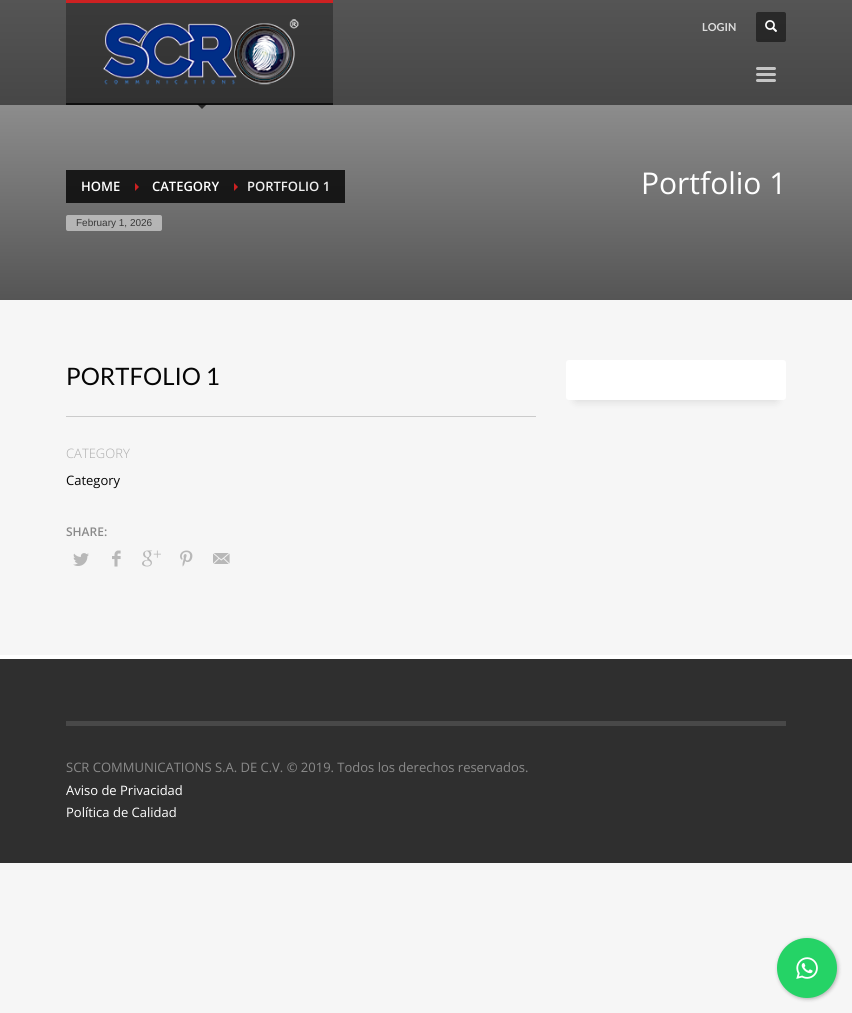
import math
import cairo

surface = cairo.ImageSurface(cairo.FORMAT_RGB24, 852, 1013)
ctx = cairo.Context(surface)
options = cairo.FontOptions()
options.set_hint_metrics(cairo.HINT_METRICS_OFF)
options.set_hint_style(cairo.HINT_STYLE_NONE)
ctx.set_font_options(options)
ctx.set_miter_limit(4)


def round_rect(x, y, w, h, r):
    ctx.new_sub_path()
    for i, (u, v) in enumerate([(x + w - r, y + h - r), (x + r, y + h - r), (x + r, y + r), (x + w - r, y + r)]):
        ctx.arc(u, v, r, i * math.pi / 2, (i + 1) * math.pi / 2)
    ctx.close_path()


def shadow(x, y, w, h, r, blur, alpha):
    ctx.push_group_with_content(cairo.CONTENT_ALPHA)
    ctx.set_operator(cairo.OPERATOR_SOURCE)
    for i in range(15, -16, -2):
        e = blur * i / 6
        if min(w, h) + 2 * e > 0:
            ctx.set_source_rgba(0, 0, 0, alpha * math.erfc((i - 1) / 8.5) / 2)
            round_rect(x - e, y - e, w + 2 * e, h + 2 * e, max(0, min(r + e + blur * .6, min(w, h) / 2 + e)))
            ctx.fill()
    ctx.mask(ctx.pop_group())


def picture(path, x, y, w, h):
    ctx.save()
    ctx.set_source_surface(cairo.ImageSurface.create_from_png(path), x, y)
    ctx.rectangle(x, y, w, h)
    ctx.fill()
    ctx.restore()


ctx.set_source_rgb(0.961, 0.961, 0.961)
ctx.paint()
gradient = cairo.LinearGradient(426, 0, 426, 300)
gradient.add_color_stop_rgba(0, 0.333, 0.333, 0.333, 1)
gradient.add_color_stop_rgba(1, 0.169, 0.169, 0.169, 1)
ctx.set_source(gradient)
ctx.rectangle(0, 0, 852, 105)
ctx.fill()
ctx.set_source_rgb(0.804, 0.129, 0.133)
ctx.rectangle(66, 0, 267, 3)
ctx.fill()
ctx.set_source_rgb(0.059, 0.059, 0.059)
ctx.rectangle(66, 103, 267, 2)
ctx.fill()
gradient = cairo.LinearGradient(426, 0, 426, 300)
gradient.add_color_stop_rgba(0, 0.231, 0.231, 0.231, 1)
gradient.add_color_stop_rgba(1, 0.118, 0.118, 0.118, 1)
ctx.set_source(gradient)
ctx.rectangle(66, 3, 267, 100)
ctx.fill()
picture("img1.png", 103, 19, 196, 66)
gradient = cairo.LinearGradient(426, 0, 426, 300)
gradient.add_color_stop_rgba(0, 0.667, 0.667, 0.667, 1)
gradient.add_color_stop_rgba(1, 0.333, 0.333, 0.333, 1)
ctx.set_source(gradient)
ctx.rectangle(0, 105, 852, 195)
ctx.fill()
ctx.set_source_rgba(0, 0, 0, 0.7)
ctx.new_path()
ctx.move_to(197, 104)
ctx.line_to(207, 104)
ctx.line_to(202, 109)
ctx.close_path()
ctx.fill()
ctx.select_font_face("Lato", cairo.FONT_SLANT_NORMAL, cairo.FONT_WEIGHT_BOLD)
ctx.set_font_size(11)
ctx.set_source_rgb(0.863, 0.863, 0.863)
ctx.move_to(702, 31)
ctx.show_text("LOGIN")
ctx.set_source_rgba(0, 0, 0, 0.5)
round_rect(756, 12, 30, 30, 2)
ctx.fill()
picture("img2.png", 765, 20, 12, 12)
ctx.set_source_rgb(0.773, 0.773, 0.773)
round_rect(756, 67, 20, 3, 1.5)
ctx.fill()
round_rect(756, 73, 20, 3, 1.5)
ctx.fill()
round_rect(756, 79, 20, 3, 1.5)
ctx.fill()
gradient = cairo.LinearGradient(426, 0, 426, 300)
gradient.add_color_stop_rgba(0, 0.133, 0.133, 0.133, 1)
gradient.add_color_stop_rgba(1, 0.067, 0.067, 0.067, 1)
ctx.set_source(gradient)
ctx.rectangle(224, 170, 121, 33)
ctx.fill()
ctx.rectangle(125, 170, 99, 33)
ctx.fill()
ctx.rectangle(66, 170, 59, 33)
ctx.fill()
ctx.select_font_face("Open Sans SemiBold")
ctx.set_font_size(13)
ctx.set_source_rgb(1, 1, 1)
ctx.move_to(81, 191)
ctx.show_text("HOME")
ctx.set_source_rgb(0.804, 0.129, 0.133)
ctx.new_path()
ctx.move_to(135, 191)
ctx.line_to(135, 183)
ctx.line_to(139, 187)
ctx.close_path()
ctx.fill()
ctx.set_source_rgb(1, 1, 1)
ctx.move_to(152, 191)
ctx.show_text("CATEGORY")
ctx.set_source_rgb(0.804, 0.129, 0.133)
ctx.new_path()
ctx.move_to(234, 191)
ctx.line_to(234, 183)
ctx.line_to(238, 187)
ctx.close_path()
ctx.fill()
ctx.set_source_rgb(0.933, 0.933, 0.933)
ctx.move_to(247, 191)
ctx.show_text("PORTFOLIO 1")
ctx.set_source_rgba(1, 1, 1, 0.5)
round_rect(66, 215, 96, 16, 2)
ctx.fill()
ctx.select_font_face("Liberation Sans")
ctx.set_font_size(10)
ctx.set_source_rgb(0.22, 0.22, 0.22)
ctx.move_to(76, 226)
ctx.show_text("February 1, 2026")
ctx.select_font_face("Open Sans")
ctx.set_font_size(30)
ctx.set_source_rgb(1, 1, 1)
ctx.move_to(641, 194)
ctx.show_text("Portfolio 1")
ctx.set_source_rgb(0.796, 0.796, 0.796)
ctx.rectangle(66, 416, 470, 1)
ctx.fill()
ctx.select_font_face("Lato")
ctx.set_font_size(24)
ctx.set_source_rgb(0.02, 0.02, 0.02)
ctx.move_to(66, 385)
ctx.show_text("PORTFOLIO 1")
ctx.select_font_face("Open Sans Light")
ctx.set_font_size(13)
ctx.set_source_rgb(0.671, 0.671, 0.671)
ctx.move_to(66, 458)
ctx.show_text("CATEGORY")
ctx.select_font_face("Open Sans")
ctx.set_source_rgb(0.02, 0.02, 0.02)
ctx.move_to(66, 485)
ctx.show_text("Category")
ctx.select_font_face("Open Sans SemiBold")
ctx.set_font_size(12)
ctx.set_source_rgb(0.541, 0.541, 0.541)
ctx.move_to(66, 536)
ctx.show_text("SHARE:")
picture("img3.png", 73, 553, 16, 13)
picture("img4.png", 112, 550, 9, 17)
picture("img5.png", 142, 550, 19, 17)
picture("img6.png", 180, 550, 13, 17)
picture("img7.png", 213, 553, 17, 11)
ctx.set_source_rgb(0, 0, 0)
shadow(576, 380, 200, 20, 0, 5, 0.15)
ctx.set_source_rgb(1, 1, 1)
round_rect(566, 360, 220, 40, 3)
ctx.fill()
ctx.set_source_rgb(0.184, 0.184, 0.184)
ctx.rectangle(0, 659, 852, 204)
ctx.fill()
ctx.set_source_rgb(1, 1, 1)
ctx.rectangle(0, 655, 852, 4)
ctx.fill()
ctx.set_source_rgb(0.282, 0.282, 0.282)
ctx.rectangle(66, 721, 720, 5)
ctx.fill()
ctx.select_font_face("Open Sans")
ctx.set_font_size(13)
ctx.set_source_rgb(0.541, 0.541, 0.541)
ctx.move_to(66, 772)
ctx.show_text("SCR COMMUNICATIONS S.A. DE C.V. © 2019. Todos los derechos reservados.")
ctx.set_source_rgb(1, 1, 1)
ctx.move_to(66, 795)
ctx.show_text("Aviso de Privacidad")
ctx.move_to(66, 817)
ctx.show_text("Política de Calidad")
ctx.set_source_rgb(0, 0, 0)
shadow(778, 939, 60, 60, 30, 2, 0.3)
ctx.set_source_rgb(0.145, 0.827, 0.4)
ctx.arc(807, 968, 30, 0, 2 * math.pi)
ctx.fill()
picture("img8.png", 796, 957, 22, 22)
surface.write_to_png("page.png")
